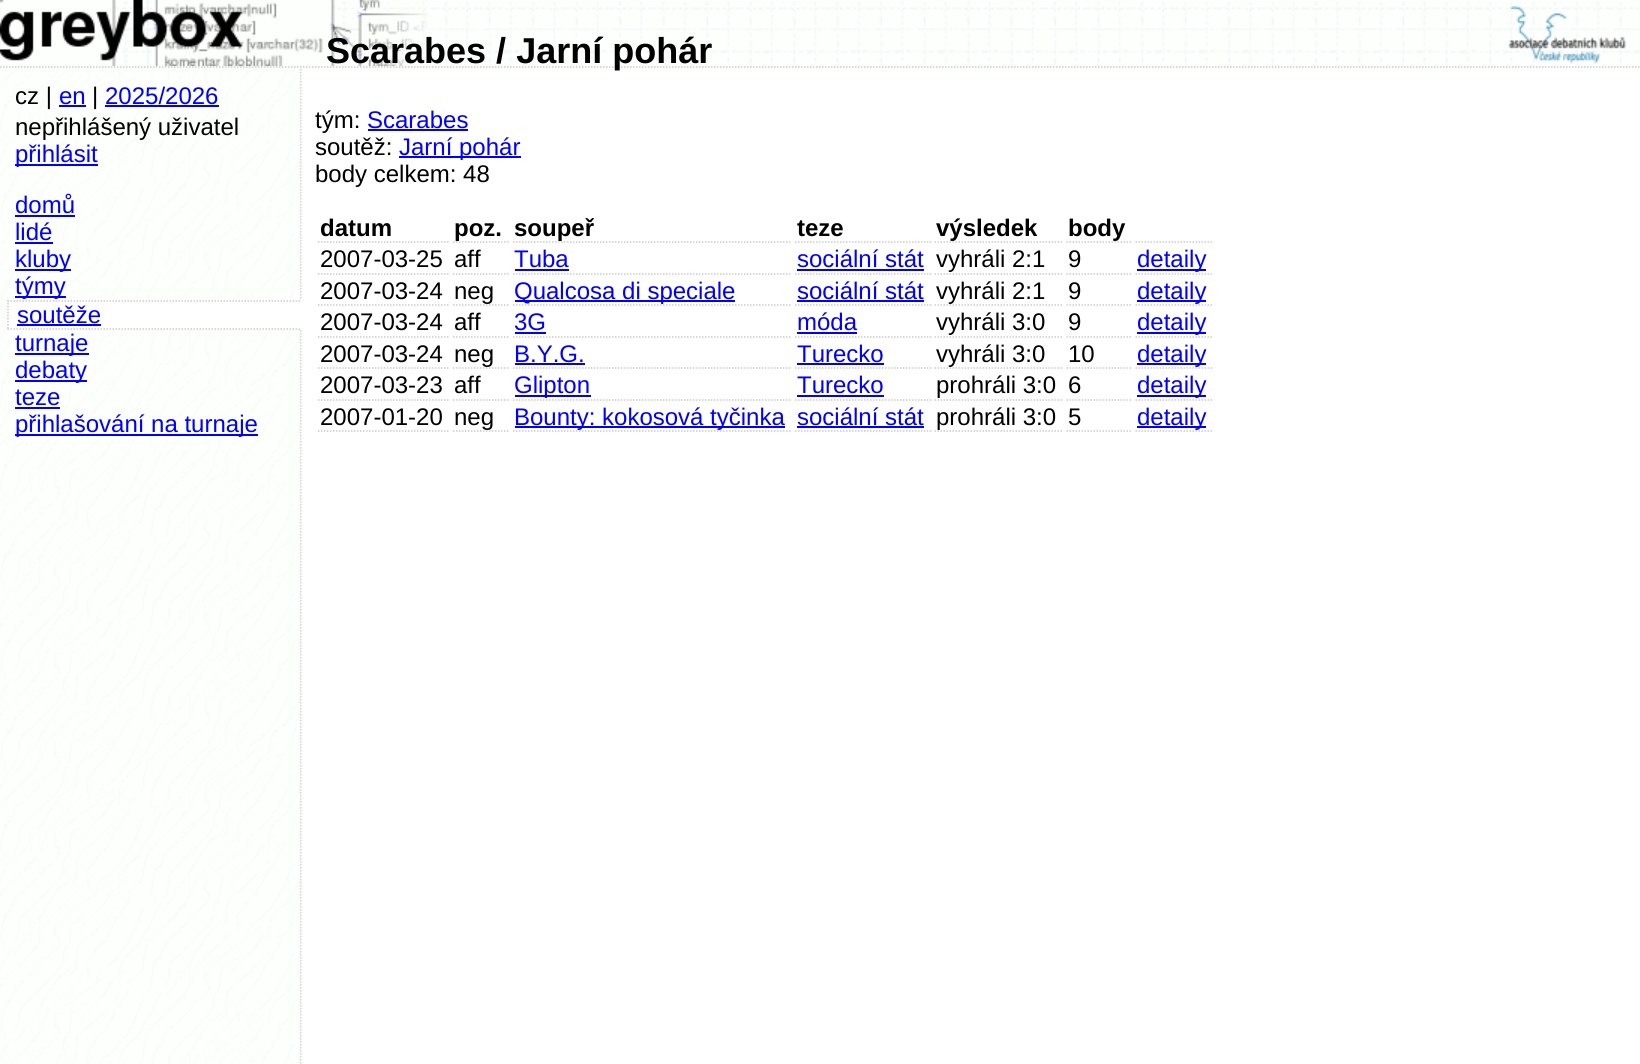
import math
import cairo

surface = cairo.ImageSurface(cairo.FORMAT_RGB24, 1640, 1064)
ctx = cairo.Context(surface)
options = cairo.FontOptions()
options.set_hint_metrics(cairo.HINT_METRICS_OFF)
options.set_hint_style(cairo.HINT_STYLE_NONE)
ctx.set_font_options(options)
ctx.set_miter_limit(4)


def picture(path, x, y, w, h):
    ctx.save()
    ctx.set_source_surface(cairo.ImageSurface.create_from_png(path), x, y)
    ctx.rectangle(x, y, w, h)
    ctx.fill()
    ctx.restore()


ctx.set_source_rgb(1, 1, 1)
ctx.paint()
picture("img1.png", 0, 68, 302, 996)
ctx.set_source_rgb(0.992, 1, 0.988)
ctx.rectangle(0, 0, 1640, 68)
ctx.fill()
picture("img2.png", 366, 1, 1274, 65)
ctx.new_path()
ctx.move_to(0, 67)
ctx.line_to(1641, 67)
ctx.set_source_rgb(0.796, 0.804, 0.792)
ctx.set_line_width(1.5)
ctx.set_dash([1.5, 1.5])
ctx.stroke()
picture("img3.png", 0, 0, 429, 66)
ctx.select_font_face("Liberation Sans", cairo.FONT_SLANT_NORMAL, cairo.FONT_WEIGHT_BOLD)
ctx.set_font_size(36)
ctx.set_source_rgb(0, 0, 0)
ctx.move_to(326, 63)
ctx.show_text("Scarabes / Jarní pohár")
picture("img4.png", 1508, 5, 119, 59)
ctx.select_font_face("Liberation Sans")
ctx.set_font_size(24)
ctx.move_to(15, 104)
ctx.show_text("cz |")
ctx.set_source_rgb(0, 0, 1)
ctx.move_to(59, 104)
ctx.show_text("en")
ctx.rectangle(59, 105, 27, 2)
ctx.fill()
ctx.set_source_rgb(0, 0, 0)
ctx.move_to(92, 104)
ctx.show_text("|")
ctx.set_source_rgb(0, 0, 1)
ctx.move_to(105, 104)
ctx.show_text("2025/2026")
ctx.rectangle(105, 105, 114, 2)
ctx.fill()
ctx.set_source_rgb(0, 0, 0)
ctx.move_to(15, 135)
ctx.show_text("nepřihlášený uživatel")
ctx.set_source_rgb(0, 0, 1)
ctx.rectangle(15, 164, 83, 2)
ctx.fill()
ctx.move_to(15, 162)
ctx.show_text("přihlásit")
ctx.move_to(15, 213)
ctx.show_text("domů")
ctx.rectangle(15, 215, 60, 2)
ctx.fill()
ctx.move_to(15, 240)
ctx.show_text("lidé")
ctx.rectangle(15, 242, 38, 2)
ctx.fill()
ctx.rectangle(15, 269, 56, 2)
ctx.fill()
ctx.move_to(15, 267)
ctx.show_text("kluby")
ctx.rectangle(15, 296, 51, 2)
ctx.fill()
ctx.move_to(15, 294)
ctx.show_text("týmy")
ctx.set_source_rgb(1, 1, 1)
ctx.rectangle(8, 300, 294, 30)
ctx.fill()
ctx.new_path()
ctx.move_to(7.5, 301)
ctx.line_to(301.5, 301)
ctx.set_source_rgb(0.796, 0.804, 0.792)
ctx.stroke()
ctx.new_path()
ctx.move_to(7.5, 329)
ctx.line_to(301.5, 329)
ctx.stroke()
ctx.new_path()
ctx.move_to(8, 300)
ctx.line_to(8, 330)
ctx.stroke()
ctx.set_source_rgb(0, 0, 1)
ctx.move_to(17, 323)
ctx.show_text("soutěže")
ctx.rectangle(17, 324, 84, 2)
ctx.fill()
ctx.rectangle(15, 353, 74, 2)
ctx.fill()
ctx.move_to(15, 351)
ctx.show_text("turnaje")
ctx.rectangle(15, 380, 72, 2)
ctx.fill()
ctx.move_to(15, 378)
ctx.show_text("debaty")
ctx.move_to(15, 405)
ctx.show_text("teze")
ctx.rectangle(15, 407, 45, 2)
ctx.fill()
ctx.rectangle(15, 434, 243, 2)
ctx.fill()
ctx.move_to(15, 432)
ctx.show_text("přihlašování na turnaje")
ctx.set_source_rgb(0, 0, 0)
ctx.move_to(315, 128)
ctx.show_text("tým:")
ctx.set_source_rgb(0, 0, 1)
ctx.move_to(367, 128)
ctx.show_text("Scarabes")
ctx.rectangle(368, 129, 100, 2)
ctx.fill()
ctx.set_source_rgb(0, 0, 0)
ctx.move_to(315, 155)
ctx.show_text("soutěž:")
ctx.set_source_rgb(0, 0, 1)
ctx.rectangle(399, 156, 122, 2)
ctx.fill()
ctx.move_to(399, 155)
ctx.show_text("Jarní pohár")
ctx.set_source_rgb(0, 0, 0)
ctx.move_to(315, 182)
ctx.show_text("body celkem: 48")
ctx.new_path()
ctx.move_to(318, 242)
ctx.line_to(450, 242)
ctx.set_source_rgb(0.796, 0.804, 0.792)
ctx.stroke()
ctx.select_font_face("Liberation Sans", cairo.FONT_SLANT_NORMAL, cairo.FONT_WEIGHT_BOLD)
ctx.set_source_rgb(0, 0, 0)
ctx.move_to(320, 236)
ctx.show_text("datum")
ctx.new_path()
ctx.move_to(453, 242)
ctx.line_to(510, 242)
ctx.set_source_rgb(0.796, 0.804, 0.792)
ctx.stroke()
ctx.set_source_rgb(0, 0, 0)
ctx.move_to(454, 236)
ctx.show_text("poz.")
ctx.new_path()
ctx.move_to(513, 242)
ctx.line_to(792, 242)
ctx.set_source_rgb(0.796, 0.804, 0.792)
ctx.stroke()
ctx.set_source_rgb(0, 0, 0)
ctx.move_to(514, 236)
ctx.show_text("soupeř")
ctx.new_path()
ctx.move_to(795, 242)
ctx.line_to(931.5, 242)
ctx.set_source_rgb(0.796, 0.804, 0.792)
ctx.stroke()
ctx.set_source_rgb(0, 0, 0)
ctx.move_to(797, 236)
ctx.show_text("teze")
ctx.new_path()
ctx.move_to(934.5, 242)
ctx.line_to(1063.5, 242)
ctx.set_source_rgb(0.796, 0.804, 0.792)
ctx.stroke()
ctx.set_source_rgb(0, 0, 0)
ctx.move_to(936, 236)
ctx.show_text("výsledek")
ctx.new_path()
ctx.move_to(1066.5, 242)
ctx.line_to(1132.5, 242)
ctx.set_source_rgb(0.796, 0.804, 0.792)
ctx.stroke()
ctx.set_source_rgb(0, 0, 0)
ctx.move_to(1068, 236)
ctx.show_text("body")
ctx.new_path()
ctx.move_to(1135.5, 242)
ctx.line_to(1213.5, 242)
ctx.set_source_rgb(0.796, 0.804, 0.792)
ctx.stroke()
ctx.new_path()
ctx.move_to(318, 274)
ctx.line_to(450, 274)
ctx.stroke()
ctx.select_font_face("Liberation Sans")
ctx.set_source_rgb(0, 0, 0)
ctx.move_to(320, 267)
ctx.show_text("2007-03-25")
ctx.new_path()
ctx.move_to(453, 274)
ctx.line_to(510, 274)
ctx.set_source_rgb(0.796, 0.804, 0.792)
ctx.stroke()
ctx.set_source_rgb(0, 0, 0)
ctx.move_to(454, 267)
ctx.show_text("aff")
ctx.new_path()
ctx.move_to(513, 274)
ctx.line_to(792, 274)
ctx.set_source_rgb(0.796, 0.804, 0.792)
ctx.stroke()
ctx.set_source_rgb(0, 0, 1)
ctx.move_to(514, 267)
ctx.show_text("Tuba")
ctx.rectangle(515, 269, 54, 2)
ctx.fill()
ctx.new_path()
ctx.move_to(795, 274)
ctx.line_to(931.5, 274)
ctx.set_source_rgb(0.796, 0.804, 0.792)
ctx.stroke()
ctx.set_source_rgb(0, 0, 1)
ctx.move_to(797, 267)
ctx.show_text("sociální stát")
ctx.rectangle(797, 269, 127, 2)
ctx.fill()
ctx.new_path()
ctx.move_to(934.5, 274)
ctx.line_to(1063.5, 274)
ctx.set_source_rgb(0.796, 0.804, 0.792)
ctx.stroke()
ctx.set_source_rgb(0, 0, 0)
ctx.move_to(936, 267)
ctx.show_text("vyhráli 2:1")
ctx.new_path()
ctx.move_to(1066.5, 274)
ctx.line_to(1132.5, 274)
ctx.set_source_rgb(0.796, 0.804, 0.792)
ctx.stroke()
ctx.set_source_rgb(0, 0, 0)
ctx.move_to(1068, 267)
ctx.show_text("9")
ctx.new_path()
ctx.move_to(1135.5, 274)
ctx.line_to(1213.5, 274)
ctx.set_source_rgb(0.796, 0.804, 0.792)
ctx.stroke()
ctx.set_source_rgb(0, 0, 1)
ctx.rectangle(1137, 269, 69, 2)
ctx.fill()
ctx.move_to(1137, 267)
ctx.show_text("detaily")
ctx.new_path()
ctx.move_to(318, 305)
ctx.line_to(450, 305)
ctx.set_source_rgb(0.796, 0.804, 0.792)
ctx.stroke()
ctx.set_source_rgb(0, 0, 0)
ctx.move_to(320, 299)
ctx.show_text("2007-03-24")
ctx.new_path()
ctx.move_to(453, 305)
ctx.line_to(510, 305)
ctx.set_source_rgb(0.796, 0.804, 0.792)
ctx.stroke()
ctx.set_source_rgb(0, 0, 0)
ctx.move_to(454, 299)
ctx.show_text("neg")
ctx.new_path()
ctx.move_to(513, 305)
ctx.line_to(792, 305)
ctx.set_source_rgb(0.796, 0.804, 0.792)
ctx.stroke()
ctx.set_source_rgb(0, 0, 1)
ctx.rectangle(515, 300, 220, 2)
ctx.fill()
ctx.move_to(514, 299)
ctx.show_text("Qualcosa di speciale")
ctx.new_path()
ctx.move_to(795, 305)
ctx.line_to(931.5, 305)
ctx.set_source_rgb(0.796, 0.804, 0.792)
ctx.stroke()
ctx.set_source_rgb(0, 0, 1)
ctx.move_to(797, 299)
ctx.show_text("sociální stát")
ctx.rectangle(797, 300, 127, 2)
ctx.fill()
ctx.new_path()
ctx.move_to(934.5, 305)
ctx.line_to(1063.5, 305)
ctx.set_source_rgb(0.796, 0.804, 0.792)
ctx.stroke()
ctx.set_source_rgb(0, 0, 0)
ctx.move_to(936, 299)
ctx.show_text("vyhráli 2:1")
ctx.new_path()
ctx.move_to(1066.5, 305)
ctx.line_to(1132.5, 305)
ctx.set_source_rgb(0.796, 0.804, 0.792)
ctx.stroke()
ctx.set_source_rgb(0, 0, 0)
ctx.move_to(1068, 299)
ctx.show_text("9")
ctx.new_path()
ctx.move_to(1135.5, 305)
ctx.line_to(1213.5, 305)
ctx.set_source_rgb(0.796, 0.804, 0.792)
ctx.stroke()
ctx.set_source_rgb(0, 0, 1)
ctx.rectangle(1137, 300, 69, 2)
ctx.fill()
ctx.move_to(1137, 299)
ctx.show_text("detaily")
ctx.new_path()
ctx.move_to(318, 337)
ctx.line_to(450, 337)
ctx.set_source_rgb(0.796, 0.804, 0.792)
ctx.stroke()
ctx.set_source_rgb(0, 0, 0)
ctx.move_to(320, 330)
ctx.show_text("2007-03-24")
ctx.new_path()
ctx.move_to(453, 337)
ctx.line_to(510, 337)
ctx.set_source_rgb(0.796, 0.804, 0.792)
ctx.stroke()
ctx.set_source_rgb(0, 0, 0)
ctx.move_to(454, 330)
ctx.show_text("aff")
ctx.new_path()
ctx.move_to(513, 337)
ctx.line_to(792, 337)
ctx.set_source_rgb(0.796, 0.804, 0.792)
ctx.stroke()
ctx.set_source_rgb(0, 0, 1)
ctx.move_to(514, 330)
ctx.show_text("3G")
ctx.rectangle(515, 332, 31, 2)
ctx.fill()
ctx.new_path()
ctx.move_to(795, 337)
ctx.line_to(931.5, 337)
ctx.set_source_rgb(0.796, 0.804, 0.792)
ctx.stroke()
ctx.set_source_rgb(0, 0, 1)
ctx.move_to(797, 330)
ctx.show_text("móda")
ctx.rectangle(797, 332, 60, 2)
ctx.fill()
ctx.new_path()
ctx.move_to(934.5, 337)
ctx.line_to(1063.5, 337)
ctx.set_source_rgb(0.796, 0.804, 0.792)
ctx.stroke()
ctx.set_source_rgb(0, 0, 0)
ctx.move_to(936, 330)
ctx.show_text("vyhráli 3:0")
ctx.new_path()
ctx.move_to(1066.5, 337)
ctx.line_to(1132.5, 337)
ctx.set_source_rgb(0.796, 0.804, 0.792)
ctx.stroke()
ctx.set_source_rgb(0, 0, 0)
ctx.move_to(1068, 330)
ctx.show_text("9")
ctx.new_path()
ctx.move_to(1135.5, 337)
ctx.line_to(1213.5, 337)
ctx.set_source_rgb(0.796, 0.804, 0.792)
ctx.stroke()
ctx.set_source_rgb(0, 0, 1)
ctx.rectangle(1137, 332, 69, 2)
ctx.fill()
ctx.move_to(1137, 330)
ctx.show_text("detaily")
ctx.new_path()
ctx.move_to(318, 368)
ctx.line_to(450, 368)
ctx.set_source_rgb(0.796, 0.804, 0.792)
ctx.stroke()
ctx.set_source_rgb(0, 0, 0)
ctx.move_to(320, 362)
ctx.show_text("2007-03-24")
ctx.new_path()
ctx.move_to(453, 368)
ctx.line_to(510, 368)
ctx.set_source_rgb(0.796, 0.804, 0.792)
ctx.stroke()
ctx.set_source_rgb(0, 0, 0)
ctx.move_to(454, 362)
ctx.show_text("neg")
ctx.new_path()
ctx.move_to(513, 368)
ctx.line_to(792, 368)
ctx.set_source_rgb(0.796, 0.804, 0.792)
ctx.stroke()
ctx.set_source_rgb(0, 0, 1)
ctx.move_to(514, 362)
ctx.show_text("B.Y.G.")
ctx.rectangle(515, 363, 70, 2)
ctx.fill()
ctx.new_path()
ctx.move_to(795, 368)
ctx.line_to(931.5, 368)
ctx.set_source_rgb(0.796, 0.804, 0.792)
ctx.stroke()
ctx.set_source_rgb(0, 0, 1)
ctx.move_to(797, 362)
ctx.show_text("Turecko")
ctx.rectangle(797, 363, 87, 2)
ctx.fill()
ctx.new_path()
ctx.move_to(934.5, 368)
ctx.line_to(1063.5, 368)
ctx.set_source_rgb(0.796, 0.804, 0.792)
ctx.stroke()
ctx.set_source_rgb(0, 0, 0)
ctx.move_to(936, 362)
ctx.show_text("vyhráli 3:0")
ctx.new_path()
ctx.move_to(1066.5, 368)
ctx.line_to(1132.5, 368)
ctx.set_source_rgb(0.796, 0.804, 0.792)
ctx.stroke()
ctx.set_source_rgb(0, 0, 0)
ctx.move_to(1068, 362)
ctx.show_text("10")
ctx.new_path()
ctx.move_to(1135.5, 368)
ctx.line_to(1213.5, 368)
ctx.set_source_rgb(0.796, 0.804, 0.792)
ctx.stroke()
ctx.set_source_rgb(0, 0, 1)
ctx.rectangle(1137, 363, 69, 2)
ctx.fill()
ctx.move_to(1137, 362)
ctx.show_text("detaily")
ctx.new_path()
ctx.move_to(318, 400)
ctx.line_to(450, 400)
ctx.set_source_rgb(0.796, 0.804, 0.792)
ctx.stroke()
ctx.set_source_rgb(0, 0, 0)
ctx.move_to(320, 393)
ctx.show_text("2007-03-23")
ctx.new_path()
ctx.move_to(453, 400)
ctx.line_to(510, 400)
ctx.set_source_rgb(0.796, 0.804, 0.792)
ctx.stroke()
ctx.set_source_rgb(0, 0, 0)
ctx.move_to(454, 393)
ctx.show_text("aff")
ctx.new_path()
ctx.move_to(513, 400)
ctx.line_to(792, 400)
ctx.set_source_rgb(0.796, 0.804, 0.792)
ctx.stroke()
ctx.set_source_rgb(0, 0, 1)
ctx.rectangle(515, 395, 76, 2)
ctx.fill()
ctx.move_to(514, 393)
ctx.show_text("Glipton")
ctx.new_path()
ctx.move_to(795, 400)
ctx.line_to(931.5, 400)
ctx.set_source_rgb(0.796, 0.804, 0.792)
ctx.stroke()
ctx.set_source_rgb(0, 0, 1)
ctx.move_to(797, 393)
ctx.show_text("Turecko")
ctx.rectangle(797, 395, 87, 2)
ctx.fill()
ctx.new_path()
ctx.move_to(934.5, 400)
ctx.line_to(1063.5, 400)
ctx.set_source_rgb(0.796, 0.804, 0.792)
ctx.stroke()
ctx.set_source_rgb(0, 0, 0)
ctx.move_to(936, 393)
ctx.show_text("prohráli 3:0")
ctx.new_path()
ctx.move_to(1066.5, 400)
ctx.line_to(1132.5, 400)
ctx.set_source_rgb(0.796, 0.804, 0.792)
ctx.stroke()
ctx.set_source_rgb(0, 0, 0)
ctx.move_to(1068, 393)
ctx.show_text("6")
ctx.new_path()
ctx.move_to(1135.5, 400)
ctx.line_to(1213.5, 400)
ctx.set_source_rgb(0.796, 0.804, 0.792)
ctx.stroke()
ctx.set_source_rgb(0, 0, 1)
ctx.rectangle(1137, 395, 69, 2)
ctx.fill()
ctx.move_to(1137, 393)
ctx.show_text("detaily")
ctx.new_path()
ctx.move_to(318, 431)
ctx.line_to(450, 431)
ctx.set_source_rgb(0.796, 0.804, 0.792)
ctx.stroke()
ctx.set_source_rgb(0, 0, 0)
ctx.move_to(320, 425)
ctx.show_text("2007-01-20")
ctx.new_path()
ctx.move_to(453, 431)
ctx.line_to(510, 431)
ctx.set_source_rgb(0.796, 0.804, 0.792)
ctx.stroke()
ctx.set_source_rgb(0, 0, 0)
ctx.move_to(454, 425)
ctx.show_text("neg")
ctx.new_path()
ctx.move_to(513, 431)
ctx.line_to(792, 431)
ctx.set_source_rgb(0.796, 0.804, 0.792)
ctx.stroke()
ctx.set_source_rgb(0, 0, 1)
ctx.rectangle(515, 426, 270, 2)
ctx.fill()
ctx.move_to(514, 425)
ctx.show_text("Bounty: kokosová tyčinka")
ctx.new_path()
ctx.move_to(795, 431)
ctx.line_to(931.5, 431)
ctx.set_source_rgb(0.796, 0.804, 0.792)
ctx.stroke()
ctx.set_source_rgb(0, 0, 1)
ctx.move_to(797, 425)
ctx.show_text("sociální stát")
ctx.rectangle(797, 426, 127, 2)
ctx.fill()
ctx.new_path()
ctx.move_to(934.5, 431)
ctx.line_to(1063.5, 431)
ctx.set_source_rgb(0.796, 0.804, 0.792)
ctx.stroke()
ctx.set_source_rgb(0, 0, 0)
ctx.move_to(936, 425)
ctx.show_text("prohráli 3:0")
ctx.new_path()
ctx.move_to(1066.5, 431)
ctx.line_to(1132.5, 431)
ctx.set_source_rgb(0.796, 0.804, 0.792)
ctx.stroke()
ctx.set_source_rgb(0, 0, 0)
ctx.move_to(1068, 425)
ctx.show_text("5")
ctx.new_path()
ctx.move_to(1135.5, 431)
ctx.line_to(1213.5, 431)
ctx.set_source_rgb(0.796, 0.804, 0.792)
ctx.stroke()
ctx.set_source_rgb(0, 0, 1)
ctx.rectangle(1137, 426, 69, 2)
ctx.fill()
ctx.move_to(1137, 425)
ctx.show_text("detaily")
surface.write_to_png("page.png")
